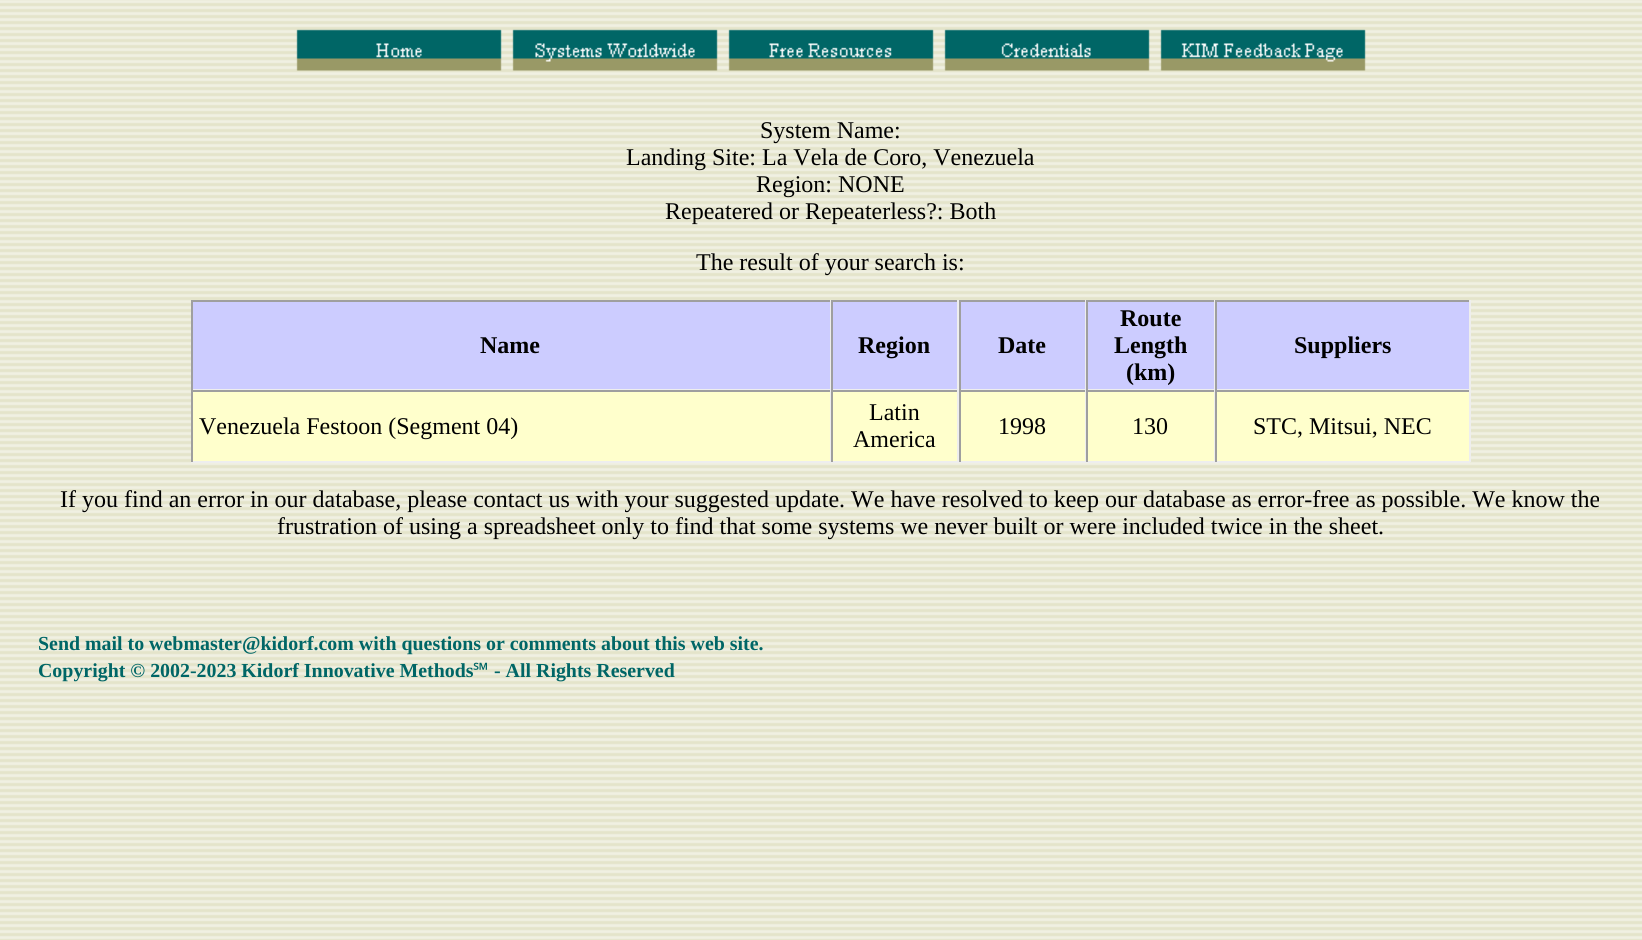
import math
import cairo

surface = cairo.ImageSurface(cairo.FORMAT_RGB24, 1642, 940)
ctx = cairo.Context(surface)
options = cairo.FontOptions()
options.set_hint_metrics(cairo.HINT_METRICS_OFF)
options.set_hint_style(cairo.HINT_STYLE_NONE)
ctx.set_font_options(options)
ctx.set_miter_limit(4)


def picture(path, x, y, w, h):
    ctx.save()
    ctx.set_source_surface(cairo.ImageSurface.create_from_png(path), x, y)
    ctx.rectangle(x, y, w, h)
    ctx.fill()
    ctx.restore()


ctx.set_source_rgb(1, 1, 1)
ctx.paint()
picture("img1.png", 0, 0, 1642, 940)
picture("img2.png", 296, 29, 206, 42)
picture("img3.png", 512, 29, 206, 42)
picture("img4.png", 728, 29, 206, 42)
picture("img5.png", 944, 29, 206, 42)
picture("img6.png", 1160, 29, 206, 42)
ctx.select_font_face("Liberation Serif")
ctx.set_font_size(24)
ctx.set_source_rgb(0, 0, 0)
ctx.move_to(760, 138)
ctx.show_text("System Name:")
ctx.move_to(626, 165)
ctx.show_text("Landing Site: La Vela de Coro, Venezuela")
ctx.move_to(756, 192)
ctx.show_text("Region: NONE")
ctx.move_to(665, 219)
ctx.show_text("Repeatered or Repeaterless?: Both")
ctx.move_to(696, 270)
ctx.show_text("The result of your search is:")
ctx.set_source_rgb(0.8, 0.8, 1)
ctx.rectangle(193, 302, 637, 87)
ctx.fill()
ctx.set_source_rgb(0.624, 0.624, 0.624)
ctx.rectangle(191, 300, 1279, 2)
ctx.fill()
ctx.set_source_rgb(0.933, 0.933, 0.933)
ctx.rectangle(830, 300, 1, 90)
ctx.fill()
ctx.rectangle(191, 389, 640, 1)
ctx.fill()
ctx.set_source_rgb(0.624, 0.624, 0.624)
ctx.rectangle(191, 300, 2, 90)
ctx.fill()
ctx.select_font_face("Liberation Serif", cairo.FONT_SLANT_NORMAL, cairo.FONT_WEIGHT_BOLD)
ctx.set_source_rgb(0, 0, 0)
ctx.move_to(480, 353)
ctx.show_text("Name")
ctx.set_source_rgb(0.8, 0.8, 1)
ctx.rectangle(833, 302, 124, 87)
ctx.fill()
ctx.set_source_rgb(0.933, 0.933, 0.933)
ctx.rectangle(957, 300, 2, 90)
ctx.fill()
ctx.rectangle(831, 389, 128, 1)
ctx.fill()
ctx.set_source_rgb(0.624, 0.624, 0.624)
ctx.rectangle(831, 300, 2, 90)
ctx.fill()
ctx.set_source_rgb(0, 0, 0)
ctx.move_to(858, 353)
ctx.show_text("Region")
ctx.set_source_rgb(0.8, 0.8, 1)
ctx.rectangle(961, 302, 124, 87)
ctx.fill()
ctx.set_source_rgb(0.933, 0.933, 0.933)
ctx.rectangle(1085, 300, 1, 90)
ctx.fill()
ctx.rectangle(959, 389, 127, 1)
ctx.fill()
ctx.set_source_rgb(0.624, 0.624, 0.624)
ctx.rectangle(959, 300, 2, 90)
ctx.fill()
ctx.set_source_rgb(0, 0, 0)
ctx.move_to(998, 353)
ctx.show_text("Date")
ctx.set_source_rgb(0.8, 0.8, 1)
ctx.rectangle(1088, 302, 126, 87)
ctx.fill()
ctx.set_source_rgb(0.933, 0.933, 0.933)
ctx.rectangle(1214, 300, 1, 90)
ctx.fill()
ctx.rectangle(1086, 389, 129, 1)
ctx.fill()
ctx.set_source_rgb(0.624, 0.624, 0.624)
ctx.rectangle(1086, 300, 2, 90)
ctx.fill()
ctx.set_source_rgb(0, 0, 0)
ctx.move_to(1120, 326)
ctx.show_text("Route")
ctx.move_to(1114, 353)
ctx.show_text("Length")
ctx.move_to(1126, 380)
ctx.show_text("(km)")
ctx.set_source_rgb(0.8, 0.8, 1)
ctx.rectangle(1217, 302, 252, 87)
ctx.fill()
ctx.set_source_rgb(0.933, 0.933, 0.933)
ctx.rectangle(1469, 300, 2, 90)
ctx.fill()
ctx.rectangle(1215, 389, 255, 1)
ctx.fill()
ctx.set_source_rgb(0.624, 0.624, 0.624)
ctx.rectangle(1215, 300, 2, 90)
ctx.fill()
ctx.set_source_rgb(0, 0, 0)
ctx.move_to(1294, 353)
ctx.show_text("Suppliers")
ctx.set_source_rgb(1, 1, 0.8)
ctx.rectangle(193, 392, 1276, 69)
ctx.fill()
ctx.set_source_rgb(0.624, 0.624, 0.624)
ctx.rectangle(191, 390, 1279, 2)
ctx.fill()
ctx.set_source_rgb(0.933, 0.933, 0.933)
ctx.rectangle(830, 390, 1, 72)
ctx.fill()
ctx.rectangle(191, 461, 640, 2)
ctx.fill()
ctx.set_source_rgb(0.624, 0.624, 0.624)
ctx.rectangle(191, 390, 2, 72)
ctx.fill()
ctx.select_font_face("Liberation Serif")
ctx.set_source_rgb(0, 0, 0)
ctx.move_to(199, 434)
ctx.show_text("Venezuela Festoon (Segment 04)")
ctx.set_source_rgb(0.933, 0.933, 0.933)
ctx.rectangle(957, 390, 2, 72)
ctx.fill()
ctx.rectangle(831, 461, 128, 2)
ctx.fill()
ctx.set_source_rgb(0.624, 0.624, 0.624)
ctx.rectangle(831, 390, 2, 72)
ctx.fill()
ctx.set_source_rgb(0, 0, 0)
ctx.move_to(869, 420)
ctx.show_text("Latin")
ctx.move_to(853, 447)
ctx.show_text("America")
ctx.set_source_rgb(0.933, 0.933, 0.933)
ctx.rectangle(1085, 390, 1, 72)
ctx.fill()
ctx.rectangle(959, 461, 127, 2)
ctx.fill()
ctx.set_source_rgb(0.624, 0.624, 0.624)
ctx.rectangle(959, 390, 2, 72)
ctx.fill()
ctx.set_source_rgb(0, 0, 0)
ctx.move_to(998, 434)
ctx.show_text("1998")
ctx.set_source_rgb(0.933, 0.933, 0.933)
ctx.rectangle(1214, 390, 1, 72)
ctx.fill()
ctx.rectangle(1086, 461, 129, 2)
ctx.fill()
ctx.set_source_rgb(0.624, 0.624, 0.624)
ctx.rectangle(1086, 390, 2, 72)
ctx.fill()
ctx.set_source_rgb(0, 0, 0)
ctx.move_to(1132, 434)
ctx.show_text("130")
ctx.set_source_rgb(0.933, 0.933, 0.933)
ctx.rectangle(1469, 390, 2, 72)
ctx.fill()
ctx.rectangle(1215, 461, 255, 2)
ctx.fill()
ctx.set_source_rgb(0.624, 0.624, 0.624)
ctx.rectangle(1215, 390, 2, 72)
ctx.fill()
ctx.set_source_rgb(0, 0, 0)
ctx.move_to(1253, 434)
ctx.show_text("STC, Mitsui, NEC")
ctx.move_to(60, 507)
ctx.show_text("If you find an error in our database, please contact us with your suggested update. We have resolved to keep our database as error-free as possible. We know the")
ctx.move_to(277, 534)
ctx.show_text("frustration of using a spreadsheet only to find that some systems we never built or were included twice in the sheet.")
ctx.select_font_face("Liberation Serif", cairo.FONT_SLANT_NORMAL, cairo.FONT_WEIGHT_BOLD)
ctx.set_font_size(19.9)
ctx.set_source_rgb(0, 0.4, 0.4)
ctx.move_to(38, 650)
ctx.show_text("Send mail to webmaster@kidorf.com with questions or comments about this web site.")
ctx.move_to(38, 677)
ctx.show_text("Copyright © 2002-2023 Kidorf Innovative Methods")
ctx.select_font_face("Noto Sans", cairo.FONT_SLANT_NORMAL, cairo.FONT_WEIGHT_BOLD)
ctx.move_to(473, 677)
ctx.show_text("℠")
ctx.select_font_face("Liberation Serif", cairo.FONT_SLANT_NORMAL, cairo.FONT_WEIGHT_BOLD)
ctx.move_to(494, 677)
ctx.show_text("- All Rights Reserved")
surface.write_to_png("page.png")
